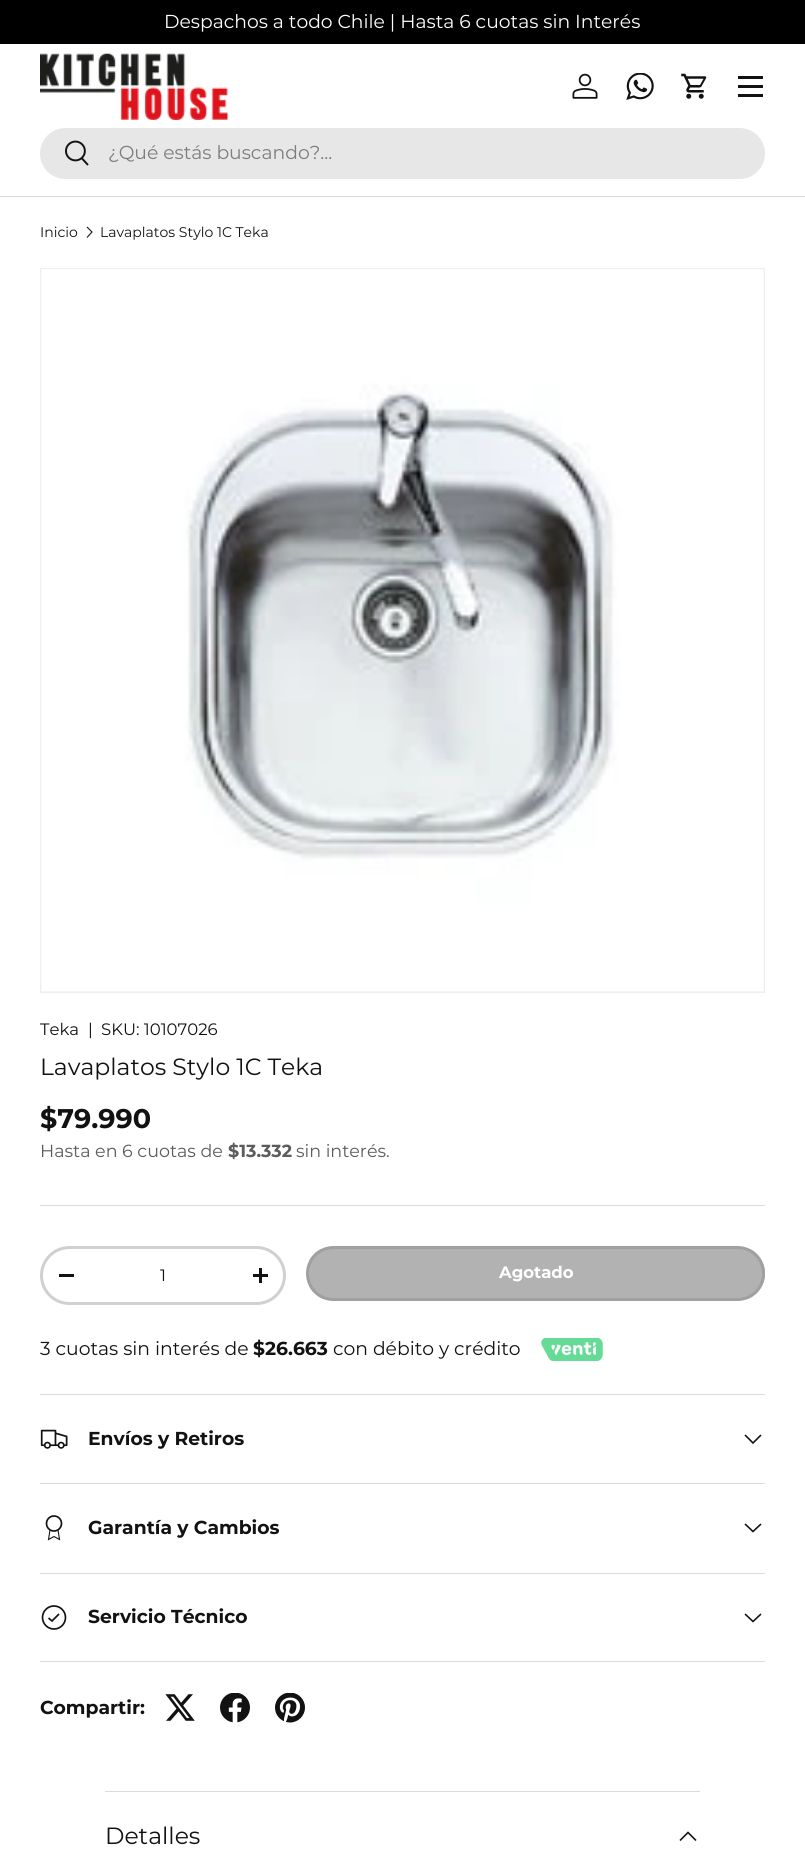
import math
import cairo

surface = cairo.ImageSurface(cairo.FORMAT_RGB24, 805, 1873)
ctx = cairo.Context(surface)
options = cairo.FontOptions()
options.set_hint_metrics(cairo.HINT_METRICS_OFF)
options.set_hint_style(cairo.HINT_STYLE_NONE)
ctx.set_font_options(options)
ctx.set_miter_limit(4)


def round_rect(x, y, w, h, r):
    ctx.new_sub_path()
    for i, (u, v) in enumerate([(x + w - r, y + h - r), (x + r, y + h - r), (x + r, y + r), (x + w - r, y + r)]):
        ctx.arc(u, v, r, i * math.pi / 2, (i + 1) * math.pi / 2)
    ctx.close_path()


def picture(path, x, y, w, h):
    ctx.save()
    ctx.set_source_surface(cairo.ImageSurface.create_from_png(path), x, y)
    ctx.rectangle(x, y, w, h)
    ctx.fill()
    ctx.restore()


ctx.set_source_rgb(1, 1, 1)
ctx.paint()
ctx.set_source_rgb(0, 0, 0)
ctx.rectangle(0, 0, 805, 44)
ctx.fill()
ctx.select_font_face("Montserrat Thin")
ctx.set_font_size(18.75)
ctx.set_source_rgb(1, 1, 1)
ctx.move_to(164, 28)
ctx.show_text("Despachos a todo Chile | Hasta 6 cuotas sin Interés")
ctx.set_source_rgb(0.859, 0.859, 0.859)
ctx.rectangle(0, 196, 805, 1)
ctx.fill()
picture("img1.png", 40, 53, 188, 67)
picture("img2.png", 572, 73, 26, 26)
picture("img3.png", 626, 73, 28, 27)
picture("img4.png", 681, 73, 26, 26)
ctx.set_source_rgb(0.071, 0.071, 0.071)
ctx.rectangle(738, 76, 25, 3)
ctx.fill()
ctx.rectangle(738, 94, 25, 3)
ctx.fill()
ctx.rectangle(738, 85, 25, 3)
ctx.fill()
ctx.set_source_rgb(0.906, 0.906, 0.906)
round_rect(40, 128, 725, 51, 25.5)
ctx.fill()
picture("img5.png", 65, 140, 24, 26)
ctx.set_source_rgb(0.49, 0.49, 0.49)
ctx.move_to(108, 159)
ctx.show_text("¿Qué estás buscando?...")
ctx.set_font_size(14)
ctx.set_source_rgb(0.071, 0.071, 0.071)
ctx.move_to(40, 237)
ctx.show_text("Inicio")
ctx.new_path()
ctx.move_to(87, 227)
ctx.line_to(92, 232)
ctx.line_to(87, 237.5)
ctx.set_line_width(1.1)
ctx.stroke()
ctx.move_to(100, 237)
ctx.show_text("Lavaplatos Stylo 1C Teka")
ctx.set_source_rgb(0.957, 0.957, 0.957)
ctx.rectangle(40.5, 268.5, 724, 724)
ctx.fill_preserve()
ctx.set_source_rgb(0.933, 0.933, 0.933)
ctx.set_line_width(1)
ctx.stroke()
picture("img6.png", 41, 269, 723, 722)
ctx.set_font_size(16.5)
ctx.set_source_rgb(0.071, 0.071, 0.071)
ctx.move_to(40, 1035)
ctx.show_text("Teka")
ctx.move_to(88, 1035)
ctx.show_text("|")
ctx.move_to(101, 1035)
ctx.show_text("SKU: 10107026")
ctx.set_font_size(23.5)
ctx.move_to(40, 1075)
ctx.show_text("Lavaplatos Stylo 1C Teka")
ctx.select_font_face("Montserrat", cairo.FONT_SLANT_NORMAL, cairo.FONT_WEIGHT_BOLD)
ctx.set_font_size(27)
ctx.move_to(40, 1128)
ctx.show_text("$79.990")
ctx.select_font_face("Montserrat Thin")
ctx.set_font_size(17.5)
ctx.set_source_rgb(0.361, 0.361, 0.361)
ctx.move_to(40, 1157)
ctx.show_text("Hasta en 6 cuotas de")
ctx.select_font_face("Montserrat", cairo.FONT_SLANT_NORMAL, cairo.FONT_WEIGHT_BOLD)
ctx.move_to(228, 1157)
ctx.show_text("$13.332")
ctx.select_font_face("Montserrat Thin")
ctx.move_to(296, 1157)
ctx.show_text("sin interés.")
ctx.set_source_rgb(0.859, 0.859, 0.859)
ctx.rectangle(40, 1205, 725, 1)
ctx.fill()
round_rect(41.5, 1247.5, 243, 56, 28)
ctx.set_source_rgb(0.816, 0.816, 0.816)
ctx.set_line_width(3)
ctx.stroke()
ctx.set_source_rgb(0.071, 0.071, 0.071)
ctx.rectangle(59, 1274, 15, 3)
ctx.fill()
ctx.set_font_size(16.5)
ctx.move_to(160, 1281)
ctx.show_text("1")
ctx.rectangle(253, 1274, 15, 3)
ctx.fill()
ctx.rectangle(259, 1268, 3, 15)
ctx.fill()
ctx.save()
round_rect(306, 1246, 459, 55, 27.5)
ctx.clip()
gradient = cairo.LinearGradient(343, 1113, 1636, 1435)
gradient.add_color_stop_rgba(0.6, 0.698, 0.698, 0.698, 1)
gradient.add_color_stop_rgba(0.6, 0.627, 0.627, 0.627, 1)
gradient.add_color_stop_rgba(1, 0.627, 0.627, 0.627, 1)
ctx.set_source(gradient)
ctx.rectangle(309, 1249, 456, 50)
ctx.fill()
ctx.restore()
round_rect(307.5, 1247.5, 456, 52, 26)
ctx.set_source_rgb(0.627, 0.627, 0.627)
ctx.stroke()
ctx.select_font_face("Montserrat", cairo.FONT_SLANT_NORMAL, cairo.FONT_WEIGHT_BOLD)
ctx.set_source_rgb(1, 1, 1)
ctx.move_to(499, 1278)
ctx.show_text("Agotado")
ctx.select_font_face("Montserrat Thin")
ctx.set_font_size(18.75)
ctx.set_source_rgb(0.071, 0.071, 0.071)
ctx.move_to(40, 1355)
ctx.show_text("3 cuotas sin interés de")
ctx.select_font_face("Montserrat", cairo.FONT_SLANT_NORMAL, cairo.FONT_WEIGHT_BOLD)
ctx.move_to(253, 1355)
ctx.show_text("$26.663")
ctx.select_font_face("Montserrat Thin")
ctx.move_to(333, 1355)
ctx.show_text("con débito y crédito")
picture("img7.png", 541, 1338, 62, 23)
ctx.set_source_rgb(0.859, 0.859, 0.859)
ctx.rectangle(40, 1394, 725, 1)
ctx.fill()
ctx.rectangle(40, 1483, 725, 1)
ctx.fill()
picture("img8.png", 40, 1429, 28, 20)
ctx.select_font_face("Montserrat", cairo.FONT_SLANT_NORMAL, cairo.FONT_WEIGHT_BOLD)
ctx.set_source_rgb(0.071, 0.071, 0.071)
ctx.move_to(88, 1445)
ctx.show_text("Envíos y Retiros")
ctx.new_path()
ctx.move_to(761, 1435)
ctx.line_to(753, 1443)
ctx.line_to(745, 1435)
ctx.set_line_width(1.6)
ctx.stroke()
ctx.set_source_rgb(0.859, 0.859, 0.859)
ctx.rectangle(40, 1573, 725, 1)
ctx.fill()
ctx.arc(54, 1523.5, 7.5, 0, 2 * math.pi)
ctx.set_source_rgb(0.071, 0.071, 0.071)
ctx.set_line_width(1.7)
ctx.stroke()
ctx.new_path()
ctx.move_to(50, 1530)
ctx.line_to(48.5, 1539.5)
ctx.line_to(54, 1536.5)
ctx.line_to(59.5, 1539.5)
ctx.line_to(58, 1530)
ctx.set_line_width(1.1)
ctx.stroke()
ctx.move_to(88, 1534)
ctx.show_text("Garantía y Cambios")
ctx.new_path()
ctx.move_to(761, 1524)
ctx.line_to(753, 1531.5)
ctx.line_to(745, 1524)
ctx.set_line_width(1.6)
ctx.stroke()
ctx.set_source_rgb(0.859, 0.859, 0.859)
ctx.rectangle(40, 1661, 725, 1)
ctx.fill()
ctx.arc(54, 1617.5, 11.5, 0, 2 * math.pi)
ctx.set_source_rgb(0.071, 0.071, 0.071)
ctx.set_line_width(1.7)
ctx.stroke()
ctx.new_path()
ctx.move_to(59, 1614)
ctx.line_to(52, 1621)
ctx.line_to(48.5, 1618)
ctx.stroke()
ctx.move_to(88, 1623)
ctx.show_text("Servicio Técnico")
ctx.new_path()
ctx.move_to(761, 1614)
ctx.line_to(753, 1621.5)
ctx.line_to(745, 1614)
ctx.set_line_width(1.6)
ctx.stroke()
ctx.move_to(40, 1714)
ctx.show_text("Compartir:")
picture("img9.png", 165, 1694, 30, 27)
picture("img10.png", 220, 1693, 30, 30)
picture("img11.png", 275, 1693, 30, 30)
ctx.set_source_rgb(0.859, 0.859, 0.859)
ctx.rectangle(105, 1791, 595, 1)
ctx.fill()
ctx.select_font_face("Montserrat Thin")
ctx.set_font_size(23.5)
ctx.set_source_rgb(0.071, 0.071, 0.071)
ctx.move_to(105, 1844)
ctx.show_text("Detalles")
ctx.new_path()
ctx.move_to(696, 1840.5)
ctx.line_to(688, 1832.5)
ctx.line_to(680, 1840.5)
ctx.stroke()
surface.write_to_png("page.png")
